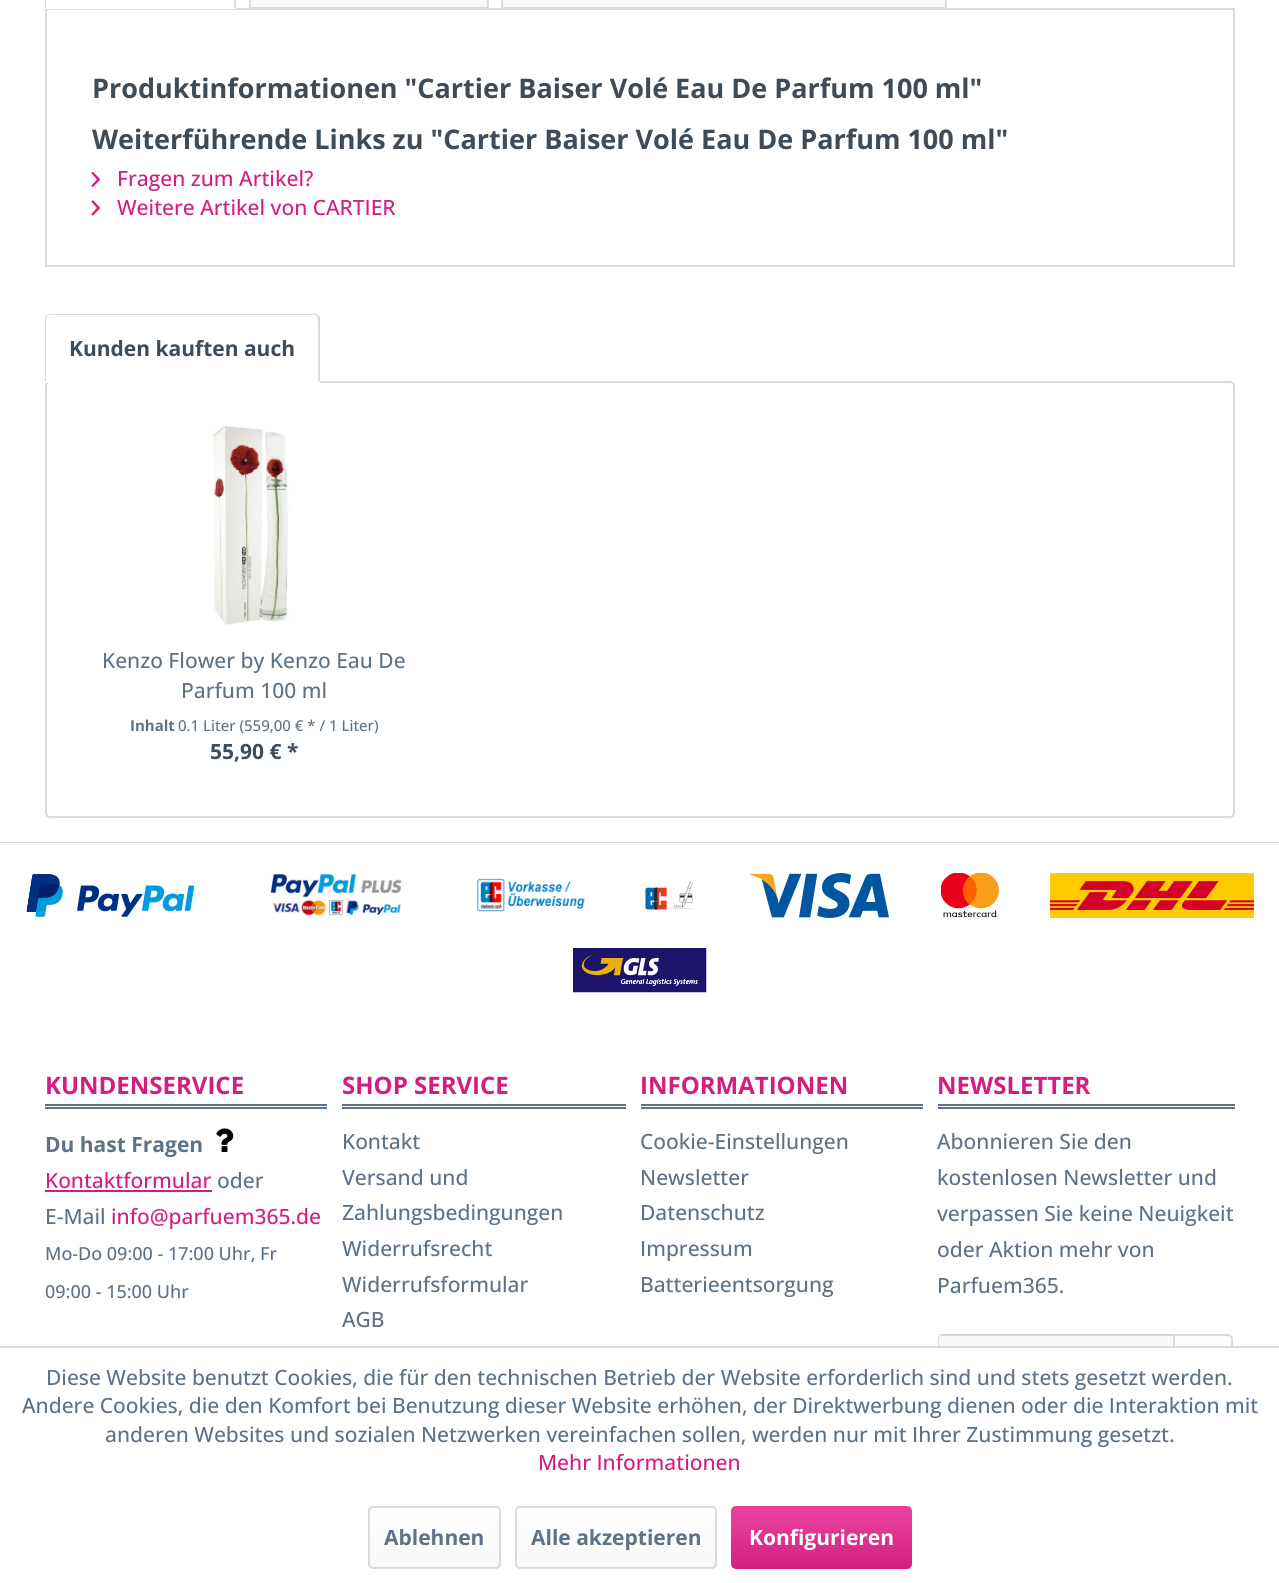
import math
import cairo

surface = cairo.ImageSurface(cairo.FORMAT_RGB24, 1279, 1583)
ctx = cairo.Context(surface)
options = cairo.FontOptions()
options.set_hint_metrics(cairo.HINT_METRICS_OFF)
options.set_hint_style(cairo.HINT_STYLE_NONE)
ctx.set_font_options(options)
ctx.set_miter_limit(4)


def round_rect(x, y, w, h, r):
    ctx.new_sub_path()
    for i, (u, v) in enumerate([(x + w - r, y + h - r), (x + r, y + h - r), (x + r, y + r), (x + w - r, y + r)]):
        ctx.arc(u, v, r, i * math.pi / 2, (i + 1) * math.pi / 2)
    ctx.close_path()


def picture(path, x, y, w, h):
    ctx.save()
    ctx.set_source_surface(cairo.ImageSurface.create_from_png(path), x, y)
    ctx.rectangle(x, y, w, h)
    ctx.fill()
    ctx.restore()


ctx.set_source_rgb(1, 1, 1)
ctx.paint()
ctx.rectangle(46, 9, 1188, 257)
ctx.set_source_rgb(0.855, 0.855, 0.898)
ctx.stroke()
ctx.set_source_rgb(1, 1, 1)
ctx.rectangle(45, 8, 191, 1)
ctx.fill()
ctx.set_source_rgb(0.855, 0.855, 0.898)
ctx.new_path()
ctx.move_to(236, -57)
ctx.line_to(236, 9)
ctx.line_to(234, 8)
ctx.line_to(234, -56)
ctx.line_to(233, -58)
ctx.line_to(234, -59)
ctx.close_path()
ctx.fill()
ctx.set_source_rgb(1, 1, 1)
ctx.new_path()
ctx.move_to(236, 9)
ctx.line_to(234, 8)
ctx.line_to(46, 8)
ctx.line_to(45, 9)
ctx.close_path()
ctx.fill()
ctx.set_source_rgb(0.855, 0.855, 0.898)
ctx.new_path()
ctx.move_to(45, 9)
ctx.line_to(46, 8)
ctx.line_to(46, -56)
ctx.line_to(48, -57)
ctx.line_to(46, -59)
ctx.line_to(45, -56)
ctx.close_path()
ctx.fill()
gradient = cairo.LinearGradient(369, -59, 369, 7.5)
gradient.add_color_stop_rgba(0, 1, 1, 1, 1)
gradient.add_color_stop_rgba(1, 0.973, 0.973, 0.98, 1)
ctx.set_source(gradient)
ctx.rectangle(251, 0, 237, 7)
ctx.fill()
ctx.rectangle(250, -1, 238, 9)
ctx.set_source_rgb(0.855, 0.855, 0.898)
ctx.stroke()
gradient = cairo.LinearGradient(724, -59, 724, 7.5)
gradient.add_color_stop_rgba(0, 1, 1, 1, 1)
gradient.add_color_stop_rgba(1, 0.973, 0.973, 0.98, 1)
ctx.set_source(gradient)
ctx.rectangle(503, 0, 442, 7)
ctx.fill()
ctx.rectangle(502, -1, 444, 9)
ctx.set_source_rgb(0.855, 0.855, 0.898)
ctx.stroke()
ctx.select_font_face("Open Sans", cairo.FONT_SLANT_NORMAL, cairo.FONT_WEIGHT_BOLD)
ctx.set_font_size(27)
ctx.set_source_rgb(0.247, 0.298, 0.345)
ctx.move_to(92, 98)
ctx.show_text("Produktinformationen \"Cartier Baiser Volé Eau De Parfum 100 ml\"")
ctx.move_to(92, 149)
ctx.show_text("Weiterführende Links zu \"Cartier Baiser Volé Eau De Parfum 100 ml\"")
picture("img1.png", 91, 172, 9, 15)
ctx.select_font_face("Open Sans Medium")
ctx.set_font_size(21)
ctx.set_source_rgb(0.827, 0.118, 0.506)
ctx.move_to(117, 186)
ctx.show_text("Fragen zum Artikel?")
picture("img2.png", 91, 200, 9, 16)
ctx.move_to(117, 215)
ctx.show_text("Weitere Artikel von CARTIER")
round_rect(46, 382, 1188, 435, 4)
ctx.set_source_rgb(0.855, 0.855, 0.898)
ctx.stroke()
ctx.set_source_rgb(1, 1, 1)
ctx.new_path()
ctx.move_to(50, 314)
ctx.line_to(315, 314)
ctx.curve_to(318, 314, 320, 316, 320, 319)
ctx.line_to(320, 383)
ctx.line_to(45, 383)
ctx.line_to(45, 319)
ctx.curve_to(45, 316, 47, 314, 50, 314)
ctx.close_path()
ctx.fill()
ctx.set_source_rgb(0.855, 0.855, 0.898)
ctx.new_path()
ctx.move_to(50, 314)
ctx.line_to(47, 315)
ctx.line_to(47, 316)
ctx.line_to(50, 315)
ctx.line_to(315, 315)
ctx.line_to(317, 316)
ctx.line_to(318, 315)
ctx.line_to(315, 314)
ctx.close_path()
ctx.fill()
ctx.new_path()
ctx.move_to(320, 382)
ctx.line_to(318, 381)
ctx.curve_to(318, 374, 319, 317, 317, 316)
ctx.line_to(318, 315)
ctx.line_to(320, 317)
ctx.close_path()
ctx.fill()
ctx.set_source_rgb(1, 1, 1)
ctx.new_path()
ctx.move_to(319, 382)
ctx.line_to(46, 382)
ctx.line_to(46, 381)
ctx.line_to(318, 381)
ctx.close_path()
ctx.fill()
ctx.set_source_rgb(0.855, 0.855, 0.898)
ctx.new_path()
ctx.move_to(45, 318)
ctx.line_to(45, 382)
ctx.line_to(46, 382)
ctx.line_to(46, 381)
ctx.line_to(46, 318)
ctx.line_to(47, 316)
ctx.line_to(47, 315)
ctx.curve_to(46, 316, 45, 317, 45, 318)
ctx.close_path()
ctx.fill()
ctx.select_font_face("Open Sans", cairo.FONT_SLANT_NORMAL, cairo.FONT_WEIGHT_BOLD)
ctx.set_source_rgb(0.247, 0.298, 0.345)
ctx.move_to(69, 356)
ctx.show_text("Kunden kauften auch")
picture("img3.png", 208, 425, 83, 201)
ctx.select_font_face("Open Sans Medium")
ctx.set_source_rgb(0.373, 0.447, 0.522)
ctx.move_to(102, 668)
ctx.show_text("Kenzo Flower by Kenzo Eau De")
ctx.move_to(181, 698)
ctx.show_text("Parfum 100 ml")
ctx.select_font_face("Open Sans", cairo.FONT_SLANT_NORMAL, cairo.FONT_WEIGHT_BOLD)
ctx.set_font_size(15)
ctx.move_to(130, 731)
ctx.show_text("Inhalt")
ctx.select_font_face("Open Sans Medium")
ctx.move_to(178, 731)
ctx.show_text("0.1 Liter (559,00 € * / 1 Liter)")
ctx.select_font_face("Open Sans", cairo.FONT_SLANT_NORMAL, cairo.FONT_WEIGHT_BOLD)
ctx.set_font_size(21)
ctx.set_source_rgb(0.247, 0.298, 0.345)
ctx.move_to(210, 759)
ctx.show_text("55,90 € *")
ctx.set_source_rgb(0.855, 0.855, 0.898)
ctx.rectangle(0, 842, 1279, 1)
ctx.fill()
picture("img4.png", 26, 874, 169, 43)
picture("img5.png", 269, 872, 133, 44)
picture("img6.png", 477, 878, 108, 34)
picture("img7.png", 645, 881, 48, 29)
picture("img8.png", 750, 873, 139, 45)
picture("img9.png", 941, 873, 58, 45)
picture("img10.png", 1050, 873, 204, 45)
picture("img11.png", 573, 948, 134, 45)
ctx.set_source_rgb(0.373, 0.447, 0.522)
ctx.rectangle(45, 1104, 282, 2)
ctx.fill()
ctx.rectangle(45, 1107, 282, 2)
ctx.fill()
ctx.set_font_size(24)
ctx.set_source_rgb(0.827, 0.118, 0.506)
ctx.move_to(45, 1094)
ctx.show_text("KUNDENSERVICE")
ctx.set_font_size(21)
ctx.set_source_rgb(0.373, 0.447, 0.522)
ctx.move_to(45, 1152)
ctx.show_text("Du hast Fragen")
picture("img12.png", 216, 1128, 18, 24)
ctx.select_font_face("Open Sans Medium")
ctx.set_source_rgb(0.827, 0.118, 0.506)
ctx.move_to(45, 1188)
ctx.show_text("Kontaktformular")
ctx.rectangle(45, 1190, 167, 2)
ctx.fill()
ctx.set_source_rgb(0.373, 0.447, 0.522)
ctx.move_to(217, 1188)
ctx.show_text("oder")
ctx.move_to(45, 1224)
ctx.show_text("E-Mail")
ctx.set_source_rgb(0.827, 0.118, 0.506)
ctx.move_to(111, 1224)
ctx.show_text("info@parfuem365.de")
ctx.set_font_size(18)
ctx.set_source_rgb(0.373, 0.447, 0.522)
ctx.move_to(45, 1260)
ctx.show_text("Mo-Do 09:00 - 17:00 Uhr, Fr")
ctx.move_to(45, 1298)
ctx.show_text("09:00 - 15:00 Uhr")
ctx.rectangle(342, 1104, 284, 2)
ctx.fill()
ctx.rectangle(342, 1107, 284, 2)
ctx.fill()
ctx.select_font_face("Open Sans", cairo.FONT_SLANT_NORMAL, cairo.FONT_WEIGHT_BOLD)
ctx.set_font_size(24)
ctx.set_source_rgb(0.827, 0.118, 0.506)
ctx.move_to(342, 1094)
ctx.show_text("SHOP SERVICE")
ctx.select_font_face("Open Sans Medium")
ctx.set_font_size(21)
ctx.set_source_rgb(0.373, 0.447, 0.522)
ctx.move_to(342, 1149)
ctx.show_text("Kontakt")
ctx.move_to(342, 1185)
ctx.show_text("Versand und")
ctx.move_to(342, 1220)
ctx.show_text("Zahlungsbedingungen")
ctx.move_to(342, 1256)
ctx.show_text("Widerrufsrecht")
ctx.move_to(342, 1292)
ctx.show_text("Widerrufsformular")
ctx.move_to(342, 1327)
ctx.show_text("AGB")
ctx.rectangle(641, 1104, 282, 2)
ctx.fill()
ctx.rectangle(641, 1107, 282, 2)
ctx.fill()
ctx.select_font_face("Open Sans", cairo.FONT_SLANT_NORMAL, cairo.FONT_WEIGHT_BOLD)
ctx.set_font_size(24)
ctx.set_source_rgb(0.827, 0.118, 0.506)
ctx.move_to(640, 1094)
ctx.show_text("INFORMATIONEN")
ctx.select_font_face("Open Sans Medium")
ctx.set_font_size(21)
ctx.set_source_rgb(0.373, 0.447, 0.522)
ctx.move_to(640, 1149)
ctx.show_text("Cookie-Einstellungen")
ctx.move_to(640, 1185)
ctx.show_text("Newsletter")
ctx.move_to(640, 1220)
ctx.show_text("Datenschutz")
ctx.move_to(640, 1256)
ctx.show_text("Impressum")
ctx.move_to(640, 1292)
ctx.show_text("Batterieentsorgung")
ctx.rectangle(938, 1104, 297, 2)
ctx.fill()
ctx.rectangle(938, 1107, 297, 2)
ctx.fill()
ctx.select_font_face("Open Sans", cairo.FONT_SLANT_NORMAL, cairo.FONT_WEIGHT_BOLD)
ctx.set_font_size(24)
ctx.set_source_rgb(0.827, 0.118, 0.506)
ctx.move_to(937, 1094)
ctx.show_text("NEWSLETTER")
ctx.select_font_face("Open Sans Medium")
ctx.set_font_size(21)
ctx.set_source_rgb(0.373, 0.447, 0.522)
ctx.move_to(937, 1149)
ctx.show_text("Abonnieren Sie den")
ctx.move_to(937, 1185)
ctx.show_text("kostenlosen Newsletter und")
ctx.move_to(937, 1221)
ctx.show_text("verpassen Sie keine Neuigkeit")
ctx.move_to(937, 1257)
ctx.show_text("oder Aktion mehr von")
ctx.move_to(937, 1293)
ctx.show_text("Parfuem365.")
ctx.set_source_rgb(0.973, 0.973, 0.98)
ctx.new_path()
ctx.move_to(942, 1335)
ctx.line_to(1173, 1335)
ctx.line_to(1173, 1392)
ctx.line_to(942, 1392)
ctx.curve_to(940.5, 1392, 939, 1390.5, 939, 1389)
ctx.line_to(939, 1338)
ctx.curve_to(939, 1336.5, 940.5, 1335, 942, 1335)
ctx.close_path()
ctx.fill()
ctx.set_source_rgb(0.855, 0.855, 0.898)
ctx.new_path()
ctx.move_to(942, 1336)
ctx.line_to(1173, 1336)
ctx.line_to(1173, 1335)
ctx.line_to(941, 1335)
ctx.curve_to(939, 1336, 939, 1338, 939, 1340)
ctx.curve_to(939, 1338, 940, 1336, 942, 1336)
ctx.close_path()
ctx.fill()
ctx.set_source_rgb(0.796, 0.796, 0.859)
ctx.new_path()
ctx.move_to(942, 1334)
ctx.line_to(939, 1335)
ctx.line_to(940, 1336)
ctx.line_to(940, 1335)
ctx.line_to(1173, 1335)
ctx.line_to(1174, 1334)
ctx.close_path()
ctx.fill()
ctx.set_source_rgb(0.855, 0.855, 0.898)
ctx.new_path()
ctx.move_to(939, 1335)
ctx.line_to(938, 1338)
ctx.line_to(938, 1380)
ctx.curve_to(938, 1384, 937, 1389, 939, 1392)
ctx.line_to(940, 1391)
ctx.line_to(939, 1390)
ctx.line_to(939, 1337)
ctx.line_to(940, 1336)
ctx.close_path()
ctx.fill()
gradient = cairo.LinearGradient(1203, 1335, 1203, 1392)
gradient.add_color_stop_rgba(0, 1, 1, 1, 1)
gradient.add_color_stop_rgba(1, 0.973, 0.973, 0.98, 1)
ctx.set_source(gradient)
ctx.new_path()
ctx.move_to(1175, 1335)
ctx.line_to(1229, 1335)
ctx.curve_to(1230.5, 1335, 1232, 1336.5, 1232, 1338)
ctx.line_to(1232, 1389)
ctx.curve_to(1232, 1390.5, 1230.5, 1392, 1229, 1392)
ctx.line_to(1175, 1392)
ctx.close_path()
ctx.fill()
ctx.new_path()
ctx.move_to(1174, 1335)
ctx.line_to(1228, 1335)
ctx.curve_to(1230, 1335, 1232, 1337, 1232, 1339)
ctx.line_to(1232, 1389)
ctx.curve_to(1232, 1391, 1230, 1393, 1228, 1393)
ctx.line_to(1174, 1393)
ctx.close_path()
ctx.set_source_rgb(0.855, 0.855, 0.898)
ctx.stroke()
ctx.set_source_rgb(1, 1, 1)
ctx.rectangle(937, 1348, 296, 46)
ctx.fill()
ctx.set_source_rgb(0.855, 0.855, 0.898)
ctx.rectangle(0, 1346, 1279, 2)
ctx.fill()
ctx.set_source_rgb(0.373, 0.447, 0.522)
ctx.move_to(46, 1385)
ctx.show_text("Diese Website benutzt Cookies, die für den technischen Betrieb der Website erforderlich sind und stets gesetzt werden.")
ctx.move_to(22, 1413)
ctx.show_text("Andere Cookies, die den Komfort bei Benutzung dieser Website erhöhen, der Direktwerbung dienen oder die Interaktion mit")
ctx.move_to(105, 1442)
ctx.show_text("anderen Websites und sozialen Netzwerken vereinfachen sollen, werden nur mit Ihrer Zustimmung gesetzt.")
ctx.set_source_rgb(0.827, 0.118, 0.506)
ctx.move_to(538, 1470)
ctx.show_text("Mehr Informationen")
gradient = cairo.LinearGradient(434, 1508, 434, 1568)
gradient.add_color_stop_rgba(0, 1, 1, 1, 1)
gradient.add_color_stop_rgba(1, 0.973, 0.973, 0.98, 1)
ctx.set_source(gradient)
round_rect(369, 1508, 131, 60, 3)
ctx.fill()
round_rect(369, 1507, 131, 61, 4)
ctx.set_source_rgb(0.855, 0.855, 0.898)
ctx.stroke()
ctx.select_font_face("Open Sans", cairo.FONT_SLANT_NORMAL, cairo.FONT_WEIGHT_BOLD)
ctx.set_source_rgb(0.373, 0.447, 0.522)
ctx.move_to(384, 1545)
ctx.show_text("Ablehnen")
gradient = cairo.LinearGradient(616, 1508, 616, 1568)
gradient.add_color_stop_rgba(0, 1, 1, 1, 1)
gradient.add_color_stop_rgba(1, 0.973, 0.973, 0.98, 1)
ctx.set_source(gradient)
round_rect(516, 1508, 200, 60, 3)
ctx.fill()
round_rect(516, 1507, 200, 61, 4)
ctx.set_source_rgb(0.855, 0.855, 0.898)
ctx.stroke()
ctx.set_source_rgb(0.373, 0.447, 0.522)
ctx.move_to(531, 1545)
ctx.show_text("Alle akzeptieren")
gradient = cairo.LinearGradient(821, 1506, 821, 1569)
gradient.add_color_stop_rgba(0, 0.918, 0.267, 0.624, 1)
gradient.add_color_stop_rgba(1, 0.827, 0.118, 0.506, 1)
ctx.set_source(gradient)
round_rect(731, 1506, 181, 63, 5)
ctx.fill()
ctx.set_source_rgb(1, 1, 1)
ctx.move_to(749, 1545)
ctx.show_text("Konfigurieren")
surface.write_to_png("page.png")
